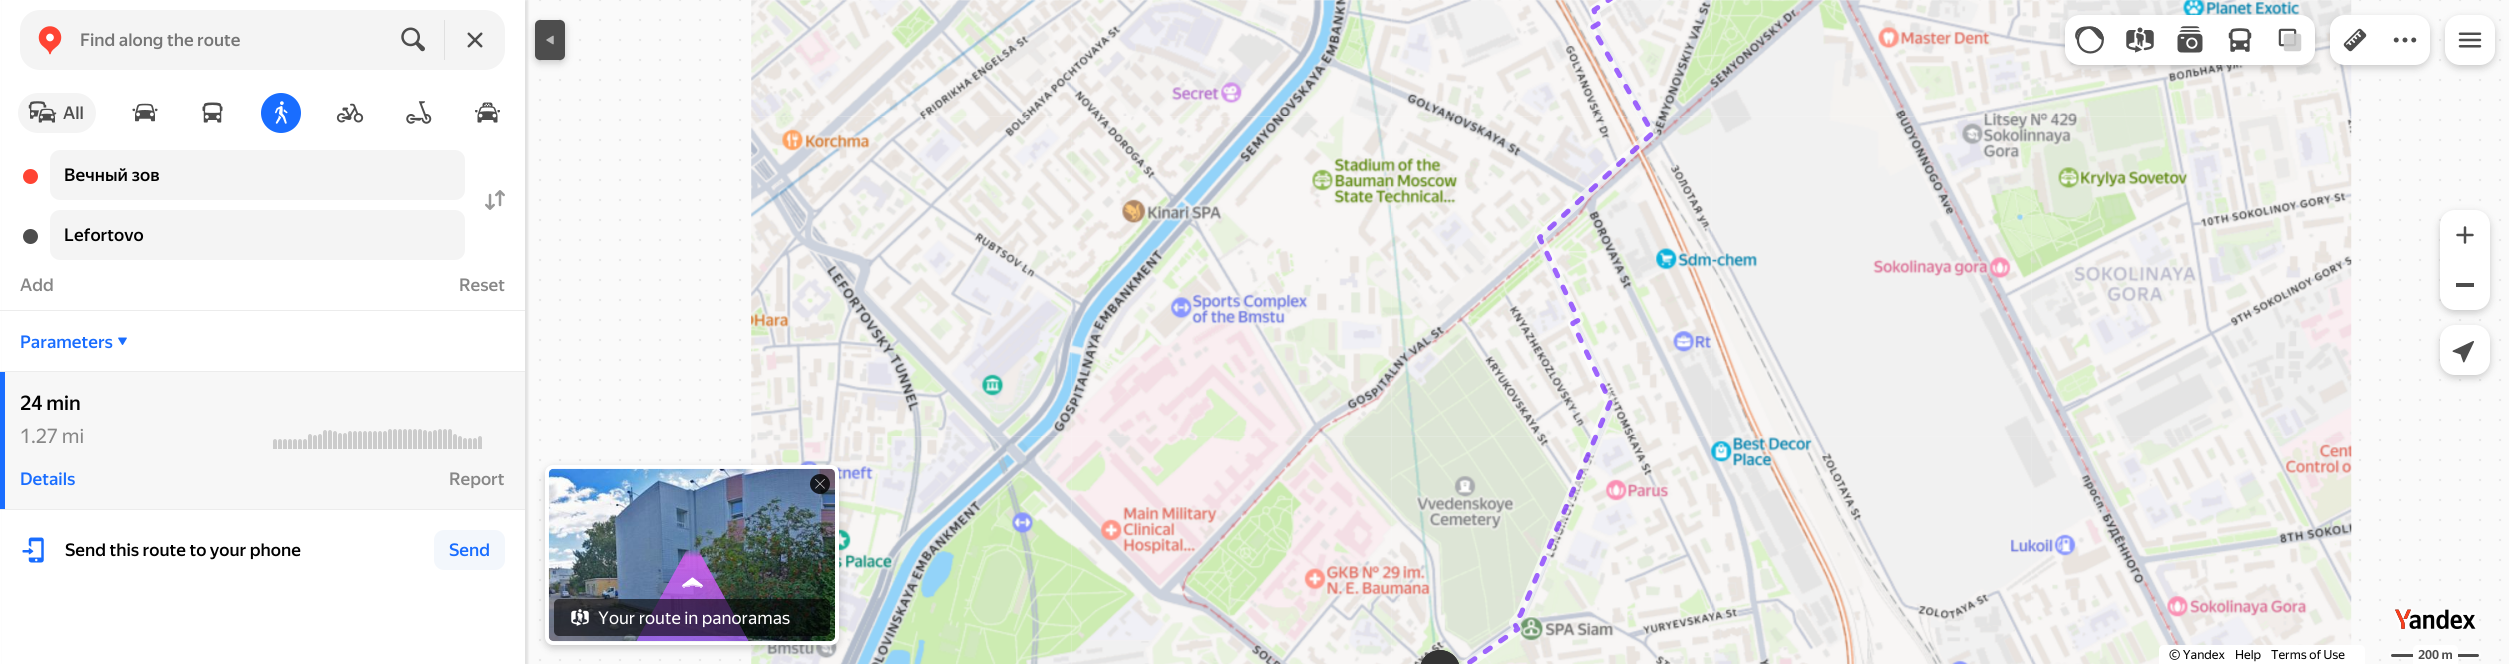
import math
import cairo

surface = cairo.ImageSurface(cairo.FORMAT_RGB24, 2509, 664)
ctx = cairo.Context(surface)
options = cairo.FontOptions()
options.set_hint_metrics(cairo.HINT_METRICS_OFF)
options.set_hint_style(cairo.HINT_STYLE_NONE)
ctx.set_font_options(options)
ctx.set_miter_limit(4)


def round_rect(x, y, w, h, r):
    ctx.new_sub_path()
    for i, (u, v) in enumerate([(x + w - r, y + h - r), (x + r, y + h - r), (x + r, y + r), (x + w - r, y + r)]):
        ctx.arc(u, v, r, i * math.pi / 2, (i + 1) * math.pi / 2)
    ctx.close_path()


def shadow(x, y, w, h, r, blur, alpha):
    ctx.push_group_with_content(cairo.CONTENT_ALPHA)
    ctx.set_operator(cairo.OPERATOR_SOURCE)
    for i in range(15, -16, -2):
        e = blur * i / 6
        if min(w, h) + 2 * e > 0:
            ctx.set_source_rgba(0, 0, 0, alpha * math.erfc((i - 1) / 8.5) / 2)
            round_rect(x - e, y - e, w + 2 * e, h + 2 * e, max(0, min(r + e + blur * .6, min(w, h) / 2 + e)))
            ctx.fill()
    ctx.mask(ctx.pop_group())


def picture(path, x, y, w, h):
    ctx.save()
    ctx.set_source_surface(cairo.ImageSurface.create_from_png(path), x, y)
    ctx.rectangle(x, y, w, h)
    ctx.fill()
    ctx.restore()


ctx.set_source_rgb(1, 1, 1)
ctx.paint()
picture("img1.png", 525, 0, 1984, 664)
picture("img2.png", 751, 0, 321, 117)
picture("img3.png", 1071, 0, 321, 117)
picture("img4.png", 1391, 0, 321, 117)
picture("img5.png", 1711, 0, 321, 117)
picture("img6.png", 2031, 0, 321, 117)
picture("img7.png", 751, 116, 321, 321)
picture("img8.png", 1071, 116, 321, 321)
picture("img9.png", 1391, 116, 321, 321)
picture("img10.png", 1711, 116, 321, 321)
picture("img11.png", 2031, 116, 321, 321)
picture("img12.png", 751, 436, 321, 228)
picture("img13.png", 1071, 436, 321, 228)
picture("img14.png", 1391, 436, 321, 228)
picture("img15.png", 1711, 436, 321, 228)
picture("img16.png", 2031, 436, 321, 228)
picture("img17.png", 1416, 0, 242, 664)
picture("img18.png", 1417, 648, 47, 16)
ctx.set_source_rgb(0, 0, 0)
shadow(3, 0, 525, 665, 0, 1, 0.1)
shadow(535, 23, 30, 40, 5, 4, 0.2)
ctx.set_source_rgb(1, 1, 1)
ctx.rectangle(2, 0, 523, 664)
ctx.fill()
ctx.set_source_rgb(0.957, 0.957, 0.957)
round_rect(20, 10, 485, 60, 20)
ctx.fill()
picture("img19.png", 38, 26, 24, 29)
ctx.select_font_face("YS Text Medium")
ctx.set_font_size(17.5)
ctx.set_source_rgb(0.459, 0.459, 0.459)
ctx.move_to(80, 46)
ctx.show_text("Find along the route")
picture("img20.png", 401, 27, 24, 25)
ctx.set_source_rgb(0.878, 0.878, 0.878)
ctx.rectangle(444, 20, 1, 40)
ctx.fill()
picture("img21.png", 467, 32, 16, 16)
ctx.set_source_rgb(0, 0, 0)
shadow(2065, 18, 250, 50, 15, 4, 0.2)
ctx.set_source_rgb(1, 1, 1)
ctx.new_path()
ctx.move_to(2080, 15)
ctx.line_to(2115, 15)
ctx.line_to(2115, 65)
ctx.line_to(2080, 65)
ctx.curve_to(2071.5, 65, 2065, 58.5, 2065, 50)
ctx.line_to(2065, 30)
ctx.curve_to(2065, 21.5, 2071.5, 15, 2080, 15)
ctx.close_path()
ctx.fill()
picture("img22.png", 2075, 26, 29, 28)
ctx.rectangle(2115, 15, 150, 50)
ctx.fill()
picture("img23.png", 2126, 27, 28, 26)
ctx.new_path()
ctx.move_to(2265, 15)
ctx.line_to(2300, 15)
ctx.curve_to(2308.5, 15, 2315, 21.5, 2315, 30)
ctx.line_to(2315, 50)
ctx.curve_to(2315, 58.5, 2308.5, 65, 2300, 65)
ctx.line_to(2265, 65)
ctx.close_path()
ctx.fill()
picture("img24.png", 2278, 28, 24, 24)
picture("img25.png", 2177, 26, 26, 27)
picture("img26.png", 2228, 28, 24, 24)
ctx.set_source_rgb(0, 0, 0)
shadow(2330, 18, 100, 50, 15, 4, 0.2)
ctx.set_source_rgb(1, 1, 1)
ctx.new_path()
ctx.move_to(2345, 15)
ctx.line_to(2380, 15)
ctx.line_to(2380, 65)
ctx.line_to(2345, 65)
ctx.curve_to(2336.5, 65, 2330, 58.5, 2330, 50)
ctx.line_to(2330, 30)
ctx.curve_to(2330, 21.5, 2336.5, 15, 2345, 15)
ctx.close_path()
ctx.fill()
picture("img27.png", 2343, 28, 24, 24)
ctx.new_path()
ctx.move_to(2380, 15)
ctx.line_to(2415, 15)
ctx.curve_to(2423.5, 15, 2430, 21.5, 2430, 30)
ctx.line_to(2430, 50)
ctx.curve_to(2430, 58.5, 2423.5, 65, 2415, 65)
ctx.line_to(2380, 65)
ctx.close_path()
ctx.fill()
picture("img28.png", 2393, 37, 24, 6)
ctx.set_source_rgb(0, 0, 0)
shadow(2445, 18, 50, 50, 15, 4, 0.2)
ctx.set_source_rgb(1, 1, 1)
round_rect(2445, 15, 50, 50, 15)
ctx.fill()
picture("img29.png", 2458, 32, 24, 16)
ctx.set_source_rgb(0, 0, 0)
shadow(2440, 213, 50, 100, 15, 4, 0.2)
ctx.set_source_rgb(1, 1, 1)
ctx.new_path()
ctx.move_to(2455, 210)
ctx.line_to(2475, 210)
ctx.curve_to(2483.5, 210, 2490, 216.5, 2490, 225)
ctx.line_to(2490, 260)
ctx.line_to(2440, 260)
ctx.line_to(2440, 225)
ctx.curve_to(2440, 216.5, 2446.5, 210, 2455, 210)
ctx.close_path()
ctx.fill()
picture("img30.png", 2456, 226, 18, 18)
ctx.new_path()
ctx.move_to(2440, 260)
ctx.line_to(2490, 260)
ctx.line_to(2490, 295)
ctx.curve_to(2490, 303.5, 2483.5, 310, 2475, 310)
ctx.line_to(2455, 310)
ctx.curve_to(2446.5, 310, 2440, 303.5, 2440, 295)
ctx.close_path()
ctx.fill()
ctx.set_source_rgb(0.302, 0.302, 0.302)
ctx.rectangle(2456, 283, 18, 4)
ctx.fill()
ctx.set_source_rgb(0, 0, 0)
shadow(2440, 328, 50, 50, 15, 4, 0.2)
ctx.set_source_rgb(1, 1, 1)
round_rect(2440, 325, 50, 50, 15)
ctx.fill()
picture("img31.png", 2452, 341, 22, 22)
ctx.set_source_rgb(0.302, 0.302, 0.302)
round_rect(535, 20, 30, 40, 5)
ctx.fill()
picture("img32.png", 546, 35, 8, 10)
ctx.set_source_rgb(0.957, 0.957, 0.957)
round_rect(18, 93, 78, 40, 20)
ctx.fill()
picture("img33.png", 28, 101, 29, 22)
ctx.set_source_rgb(0.302, 0.302, 0.302)
ctx.move_to(63, 119)
ctx.show_text("All")
picture("img34.png", 132, 103, 26, 19)
picture("img35.png", 202, 102, 21, 21)
ctx.set_source_rgb(0.098, 0.427, 1)
ctx.arc(281, 113, 20, 0, 2 * math.pi)
ctx.fill()
picture("img36.png", 275, 101, 13, 23)
picture("img37.png", 336, 103, 28, 20)
picture("img38.png", 406, 101, 26, 23)
picture("img39.png", 475, 102, 25, 21)
ctx.set_source_rgb(1, 0.267, 0.2)
ctx.arc(30.5, 176.5, 7.5, 0, 2 * math.pi)
ctx.fill()
ctx.set_source_rgb(0.957, 0.957, 0.957)
round_rect(50, 150, 415, 50, 10)
ctx.fill()
ctx.set_source_rgb(0, 0, 0)
ctx.move_to(64, 181)
ctx.show_text("Вечный зов")
ctx.set_source_rgb(0.302, 0.302, 0.302)
ctx.new_path()
ctx.arc(30.5, 236.5, 7.5, 0, 2 * math.pi)
ctx.fill()
ctx.set_source_rgb(0.957, 0.957, 0.957)
round_rect(50, 210, 415, 50, 10)
ctx.fill()
ctx.set_source_rgb(0, 0, 0)
ctx.move_to(64, 241)
ctx.show_text("Lefortovo")
picture("img40.png", 485, 190, 20, 20)
ctx.set_source_rgb(0.529, 0.529, 0.529)
ctx.move_to(20, 291)
ctx.show_text("Add")
ctx.move_to(459, 291)
ctx.show_text("Reset")
ctx.set_source_rgb(0.922, 0.922, 0.922)
ctx.rectangle(0, 310, 525, 1)
ctx.fill()
ctx.set_source_rgb(0.098, 0.427, 1)
ctx.move_to(20, 348)
ctx.show_text("Parameters")
picture("img41.png", 118, 337, 9, 8)
ctx.set_source_rgb(0.965, 0.965, 0.965)
ctx.rectangle(5, 372, 520, 137)
ctx.fill()
ctx.set_source_rgb(0.098, 0.427, 1)
ctx.rectangle(0, 371, 5, 138)
ctx.fill()
ctx.set_source_rgb(0.922, 0.922, 0.922)
ctx.rectangle(0, 371, 525, 1)
ctx.fill()
ctx.set_font_size(20)
ctx.set_source_rgb(0, 0, 0)
ctx.move_to(20, 410)
ctx.show_text("24 min")
ctx.select_font_face("YS Text")
ctx.set_source_rgb(0.529, 0.529, 0.529)
ctx.move_to(20, 443)
ctx.show_text("1.27 mi")
ctx.set_source_rgb(0.8, 0.8, 0.8)
ctx.new_path()
ctx.move_to(275, 439)
ctx.curve_to(276, 439, 277, 440, 277, 441)
ctx.line_to(277, 449)
ctx.line_to(273, 449)
ctx.line_to(273, 441)
ctx.curve_to(273, 440, 274, 439, 275, 439)
ctx.close_path()
ctx.fill()
ctx.new_path()
ctx.move_to(280, 439)
ctx.curve_to(281, 439, 282, 440, 282, 441)
ctx.line_to(282, 449)
ctx.line_to(278, 449)
ctx.line_to(278, 441)
ctx.curve_to(278, 440, 279, 439, 280, 439)
ctx.close_path()
ctx.fill()
ctx.new_path()
ctx.move_to(285, 439)
ctx.curve_to(286, 439, 287, 440, 287, 441)
ctx.line_to(287, 449)
ctx.line_to(283, 449)
ctx.line_to(283, 441)
ctx.curve_to(283, 440, 284, 439, 285, 439)
ctx.close_path()
ctx.fill()
ctx.new_path()
ctx.move_to(290, 439)
ctx.curve_to(291, 439, 292, 440, 292, 441)
ctx.line_to(292, 449)
ctx.line_to(288, 449)
ctx.line_to(288, 441)
ctx.curve_to(288, 440, 289, 439, 290, 439)
ctx.close_path()
ctx.fill()
ctx.new_path()
ctx.move_to(295, 439)
ctx.curve_to(296, 439, 297, 440, 297, 441)
ctx.line_to(297, 449)
ctx.line_to(293, 449)
ctx.line_to(293, 441)
ctx.curve_to(293, 440, 294, 439, 295, 439)
ctx.close_path()
ctx.fill()
ctx.new_path()
ctx.move_to(300, 439)
ctx.curve_to(301, 439, 302, 440, 302, 441)
ctx.line_to(302, 449)
ctx.line_to(298, 449)
ctx.line_to(298, 441)
ctx.curve_to(298, 440, 299, 439, 300, 439)
ctx.close_path()
ctx.fill()
ctx.new_path()
ctx.move_to(305, 439)
ctx.curve_to(306, 439, 307, 440, 307, 441)
ctx.line_to(307, 449)
ctx.line_to(303, 449)
ctx.line_to(303, 441)
ctx.curve_to(303, 440, 304, 439, 305, 439)
ctx.close_path()
ctx.fill()
ctx.new_path()
ctx.move_to(310, 434)
ctx.curve_to(311, 434, 312, 435, 312, 436)
ctx.line_to(312, 449)
ctx.line_to(308, 449)
ctx.line_to(308, 436)
ctx.curve_to(308, 435, 309, 434, 310, 434)
ctx.close_path()
ctx.fill()
ctx.new_path()
ctx.move_to(315, 435)
ctx.curve_to(316, 435, 317, 436, 317, 437)
ctx.line_to(317, 449)
ctx.line_to(313, 449)
ctx.line_to(313, 437)
ctx.curve_to(313, 436, 314, 435, 315, 435)
ctx.close_path()
ctx.fill()
ctx.new_path()
ctx.move_to(320, 434)
ctx.curve_to(321, 434, 322, 435, 322, 436)
ctx.line_to(322, 449)
ctx.line_to(318, 449)
ctx.line_to(318, 436)
ctx.curve_to(318, 435, 319, 434, 320, 434)
ctx.close_path()
ctx.fill()
ctx.new_path()
ctx.move_to(325, 430)
ctx.curve_to(326, 430, 327, 431, 327, 432)
ctx.line_to(327, 449)
ctx.line_to(323, 449)
ctx.line_to(323, 432)
ctx.curve_to(323, 431, 324, 430, 325, 430)
ctx.close_path()
ctx.fill()
ctx.new_path()
ctx.move_to(330, 430)
ctx.curve_to(331, 430, 332, 431, 332, 432)
ctx.line_to(332, 449)
ctx.line_to(328, 449)
ctx.line_to(328, 432)
ctx.curve_to(328, 431, 329, 430, 330, 430)
ctx.close_path()
ctx.fill()
ctx.new_path()
ctx.move_to(335, 431)
ctx.curve_to(336, 431, 337, 432, 337, 433)
ctx.line_to(337, 449)
ctx.line_to(333, 449)
ctx.line_to(333, 433)
ctx.curve_to(333, 432, 334, 431, 335, 431)
ctx.close_path()
ctx.fill()
ctx.new_path()
ctx.move_to(340, 433)
ctx.curve_to(341, 433, 342, 434, 342, 435)
ctx.line_to(342, 449)
ctx.line_to(338, 449)
ctx.line_to(338, 435)
ctx.curve_to(338, 434, 339, 433, 340, 433)
ctx.close_path()
ctx.fill()
ctx.new_path()
ctx.move_to(345, 433)
ctx.curve_to(346, 433, 347, 434, 347, 435)
ctx.line_to(347, 449)
ctx.line_to(343, 449)
ctx.line_to(343, 435)
ctx.curve_to(343, 434, 344, 433, 345, 433)
ctx.close_path()
ctx.fill()
ctx.new_path()
ctx.move_to(350, 431)
ctx.curve_to(351, 431, 352, 432, 352, 433)
ctx.line_to(352, 449)
ctx.line_to(348, 449)
ctx.line_to(348, 433)
ctx.curve_to(348, 432, 349, 431, 350, 431)
ctx.close_path()
ctx.fill()
ctx.new_path()
ctx.move_to(355, 431)
ctx.curve_to(356, 431, 357, 432, 357, 433)
ctx.line_to(357, 449)
ctx.line_to(353, 449)
ctx.line_to(353, 433)
ctx.curve_to(353, 432, 354, 431, 355, 431)
ctx.close_path()
ctx.fill()
ctx.new_path()
ctx.move_to(360, 431)
ctx.curve_to(361, 431, 362, 432, 362, 433)
ctx.line_to(362, 449)
ctx.line_to(358, 449)
ctx.line_to(358, 433)
ctx.curve_to(358, 432, 359, 431, 360, 431)
ctx.close_path()
ctx.fill()
ctx.new_path()
ctx.move_to(365, 431)
ctx.curve_to(366, 431, 367, 432, 367, 433)
ctx.line_to(367, 449)
ctx.line_to(363, 449)
ctx.line_to(363, 433)
ctx.curve_to(363, 432, 364, 431, 365, 431)
ctx.close_path()
ctx.fill()
ctx.new_path()
ctx.move_to(370, 431)
ctx.curve_to(371, 431, 372, 432, 372, 433)
ctx.line_to(372, 449)
ctx.line_to(368, 449)
ctx.line_to(368, 433)
ctx.curve_to(368, 432, 369, 431, 370, 431)
ctx.close_path()
ctx.fill()
ctx.new_path()
ctx.move_to(375, 431)
ctx.curve_to(376, 431, 377, 432, 377, 433)
ctx.line_to(377, 449)
ctx.line_to(373, 449)
ctx.line_to(373, 433)
ctx.curve_to(373, 432, 374, 431, 375, 431)
ctx.close_path()
ctx.fill()
ctx.new_path()
ctx.move_to(380, 431)
ctx.curve_to(381, 431, 382, 432, 382, 433)
ctx.line_to(382, 449)
ctx.line_to(378, 449)
ctx.line_to(378, 433)
ctx.curve_to(378, 432, 379, 431, 380, 431)
ctx.close_path()
ctx.fill()
ctx.new_path()
ctx.move_to(385, 431)
ctx.curve_to(386, 431, 387, 432, 387, 433)
ctx.line_to(387, 449)
ctx.line_to(383, 449)
ctx.line_to(383, 433)
ctx.curve_to(383, 432, 384, 431, 385, 431)
ctx.close_path()
ctx.fill()
ctx.new_path()
ctx.move_to(390, 429)
ctx.curve_to(391, 429, 392, 430, 392, 431)
ctx.line_to(392, 449)
ctx.line_to(388, 449)
ctx.line_to(388, 431)
ctx.curve_to(388, 430, 389, 429, 390, 429)
ctx.close_path()
ctx.fill()
ctx.new_path()
ctx.move_to(395, 429)
ctx.curve_to(396, 429, 397, 430, 397, 431)
ctx.line_to(397, 449)
ctx.line_to(393, 449)
ctx.line_to(393, 431)
ctx.curve_to(393, 430, 394, 429, 395, 429)
ctx.close_path()
ctx.fill()
ctx.new_path()
ctx.move_to(400, 429)
ctx.curve_to(401, 429, 402, 430, 402, 431)
ctx.line_to(402, 449)
ctx.line_to(398, 449)
ctx.line_to(398, 431)
ctx.curve_to(398, 430, 399, 429, 400, 429)
ctx.close_path()
ctx.fill()
ctx.new_path()
ctx.move_to(405, 429)
ctx.curve_to(406, 429, 407, 430, 407, 431)
ctx.line_to(407, 449)
ctx.line_to(403, 449)
ctx.line_to(403, 431)
ctx.curve_to(403, 430, 404, 429, 405, 429)
ctx.close_path()
ctx.fill()
ctx.new_path()
ctx.move_to(410, 429)
ctx.curve_to(411, 429, 412, 430, 412, 431)
ctx.line_to(412, 449)
ctx.line_to(408, 449)
ctx.line_to(408, 431)
ctx.curve_to(408, 430, 409, 429, 410, 429)
ctx.close_path()
ctx.fill()
ctx.new_path()
ctx.move_to(415, 429)
ctx.curve_to(416, 429, 417, 430, 417, 431)
ctx.line_to(417, 449)
ctx.line_to(413, 449)
ctx.line_to(413, 431)
ctx.curve_to(413, 430, 414, 429, 415, 429)
ctx.close_path()
ctx.fill()
ctx.new_path()
ctx.move_to(420, 429)
ctx.curve_to(421, 429, 422, 430, 422, 431)
ctx.line_to(422, 449)
ctx.line_to(418, 449)
ctx.line_to(418, 431)
ctx.curve_to(418, 430, 419, 429, 420, 429)
ctx.close_path()
ctx.fill()
ctx.new_path()
ctx.move_to(425, 430)
ctx.curve_to(426, 430, 427, 431, 427, 432)
ctx.line_to(427, 449)
ctx.line_to(423, 449)
ctx.line_to(423, 432)
ctx.curve_to(423, 431, 424, 430, 425, 430)
ctx.close_path()
ctx.fill()
ctx.new_path()
ctx.move_to(430, 431)
ctx.curve_to(431, 431, 432, 432, 432, 433)
ctx.line_to(432, 449)
ctx.line_to(428, 449)
ctx.line_to(428, 433)
ctx.curve_to(428, 432, 429, 431, 430, 431)
ctx.close_path()
ctx.fill()
ctx.new_path()
ctx.move_to(435, 430)
ctx.curve_to(436, 430, 437, 431, 437, 432)
ctx.line_to(437, 449)
ctx.line_to(433, 449)
ctx.line_to(433, 432)
ctx.curve_to(433, 431, 434, 430, 435, 430)
ctx.close_path()
ctx.fill()
ctx.new_path()
ctx.move_to(440, 429)
ctx.curve_to(441, 429, 442, 430, 442, 431)
ctx.line_to(442, 449)
ctx.line_to(438, 449)
ctx.line_to(438, 431)
ctx.curve_to(438, 430, 439, 429, 440, 429)
ctx.close_path()
ctx.fill()
ctx.new_path()
ctx.move_to(445, 429)
ctx.curve_to(446, 429, 447, 430, 447, 431)
ctx.line_to(447, 449)
ctx.line_to(443, 449)
ctx.line_to(443, 431)
ctx.curve_to(443, 430, 444, 429, 445, 429)
ctx.close_path()
ctx.fill()
ctx.new_path()
ctx.move_to(450, 429)
ctx.curve_to(451, 429, 452, 430, 452, 431)
ctx.line_to(452, 449)
ctx.line_to(448, 449)
ctx.line_to(448, 431)
ctx.curve_to(448, 430, 449, 429, 450, 429)
ctx.close_path()
ctx.fill()
ctx.new_path()
ctx.move_to(455, 434)
ctx.curve_to(456, 434, 457, 435, 457, 436)
ctx.line_to(457, 449)
ctx.line_to(453, 449)
ctx.line_to(453, 436)
ctx.curve_to(453, 435, 454, 434, 455, 434)
ctx.close_path()
ctx.fill()
ctx.new_path()
ctx.move_to(460, 436)
ctx.curve_to(461, 436, 462, 437, 462, 438)
ctx.line_to(462, 449)
ctx.line_to(458, 449)
ctx.line_to(458, 438)
ctx.curve_to(458, 437, 459, 436, 460, 436)
ctx.close_path()
ctx.fill()
ctx.new_path()
ctx.move_to(465, 438)
ctx.curve_to(466, 438, 467, 439, 467, 440)
ctx.line_to(467, 449)
ctx.line_to(463, 449)
ctx.line_to(463, 440)
ctx.curve_to(463, 439, 464, 438, 465, 438)
ctx.close_path()
ctx.fill()
ctx.new_path()
ctx.move_to(470, 438)
ctx.curve_to(471, 438, 472, 439, 472, 440)
ctx.line_to(472, 449)
ctx.line_to(468, 449)
ctx.line_to(468, 440)
ctx.curve_to(468, 439, 469, 438, 470, 438)
ctx.close_path()
ctx.fill()
ctx.new_path()
ctx.move_to(475, 438)
ctx.curve_to(476, 438, 477, 439, 477, 440)
ctx.line_to(477, 449)
ctx.line_to(473, 449)
ctx.line_to(473, 440)
ctx.curve_to(473, 439, 474, 438, 475, 438)
ctx.close_path()
ctx.fill()
ctx.new_path()
ctx.move_to(480, 436)
ctx.curve_to(481, 436, 482, 437, 482, 438)
ctx.line_to(482, 449)
ctx.line_to(478, 449)
ctx.line_to(478, 438)
ctx.curve_to(478, 437, 479, 436, 480, 436)
ctx.close_path()
ctx.fill()
ctx.select_font_face("YS Text Medium")
ctx.set_font_size(17.5)
ctx.set_source_rgb(0.098, 0.427, 1)
ctx.move_to(20, 485)
ctx.show_text("Details")
ctx.set_source_rgb(0.529, 0.529, 0.529)
ctx.move_to(449, 485)
ctx.show_text("Report")
ctx.set_source_rgb(0.922, 0.922, 0.922)
ctx.rectangle(0, 509, 525, 1)
ctx.fill()
picture("img42.png", 22, 537, 22, 26)
ctx.set_source_rgb(0, 0, 0)
ctx.move_to(65, 556)
ctx.show_text("Send this route to your phone")
ctx.set_source_rgb(0.953, 0.965, 0.988)
round_rect(434, 530, 71, 40, 10)
ctx.fill()
ctx.set_source_rgb(0.098, 0.427, 1)
ctx.move_to(449, 556)
ctx.show_text("Send")
ctx.set_source_rgb(0, 0, 0)
shadow(545, 468, 294, 180, 8, 4, 0.2)
ctx.set_source_rgb(1, 1, 1)
round_rect(545, 465, 294, 180, 8)
ctx.fill()
picture("img44.png", 548, 468, 287, 174)
ctx.set_source_rgba(0, 0, 0, 0.8)
ctx.arc(820, 484, 10, 0, 2 * math.pi)
ctx.fill()
picture("img43.png", 815, 479, 10, 10)
picture("img45.png", 636, 550, 113, 91)
ctx.set_source_rgba(0, 0, 0, 0.6)
round_rect(554, 599, 276, 37, 5)
ctx.fill()
picture("img46.png", 571, 609, 18, 17)
ctx.select_font_face("YS Text")
ctx.set_source_rgb(1, 1, 1)
ctx.move_to(598, 624)
ctx.show_text("Your route in panoramas")
picture("img47.png", 2395, 609, 81, 20)
ctx.new_path()
ctx.move_to(2164, 645)
ctx.line_to(2360, 645)
ctx.curve_to(2363, 645, 2365, 647, 2365, 650)
ctx.line_to(2365, 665)
ctx.line_to(2159, 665)
ctx.line_to(2159, 650)
ctx.curve_to(2159, 647, 2161, 645, 2164, 645)
ctx.close_path()
ctx.fill()
ctx.set_font_size(12.5)
ctx.set_source_rgb(0, 0, 0)
ctx.move_to(2169, 659)
ctx.show_text("© Yandex")
ctx.move_to(2235, 659)
ctx.show_text("Help")
ctx.move_to(2271, 659)
ctx.show_text("Terms of Use")
ctx.set_source_rgb(0.992, 0.992, 0.992)
round_rect(2389, 651, 92, 8, 4)
ctx.fill()
ctx.set_source_rgb(0.302, 0.302, 0.302)
round_rect(2391, 654, 88, 3, 1.5)
ctx.fill()
ctx.set_source_rgb(1, 1, 1)
ctx.new_path()
ctx.move_to(2418, 645)
ctx.line_to(2453, 645)
ctx.curve_to(2456, 645, 2458, 647, 2458, 650)
ctx.line_to(2458, 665)
ctx.line_to(2413, 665)
ctx.line_to(2413, 650)
ctx.curve_to(2413, 647, 2415, 645, 2418, 645)
ctx.close_path()
ctx.fill()
ctx.select_font_face("YS Text", cairo.FONT_SLANT_NORMAL, cairo.FONT_WEIGHT_BOLD)
ctx.set_source_rgb(0.302, 0.302, 0.302)
ctx.move_to(2418, 659)
ctx.show_text("200 m")
surface.write_to_png("page.png")
